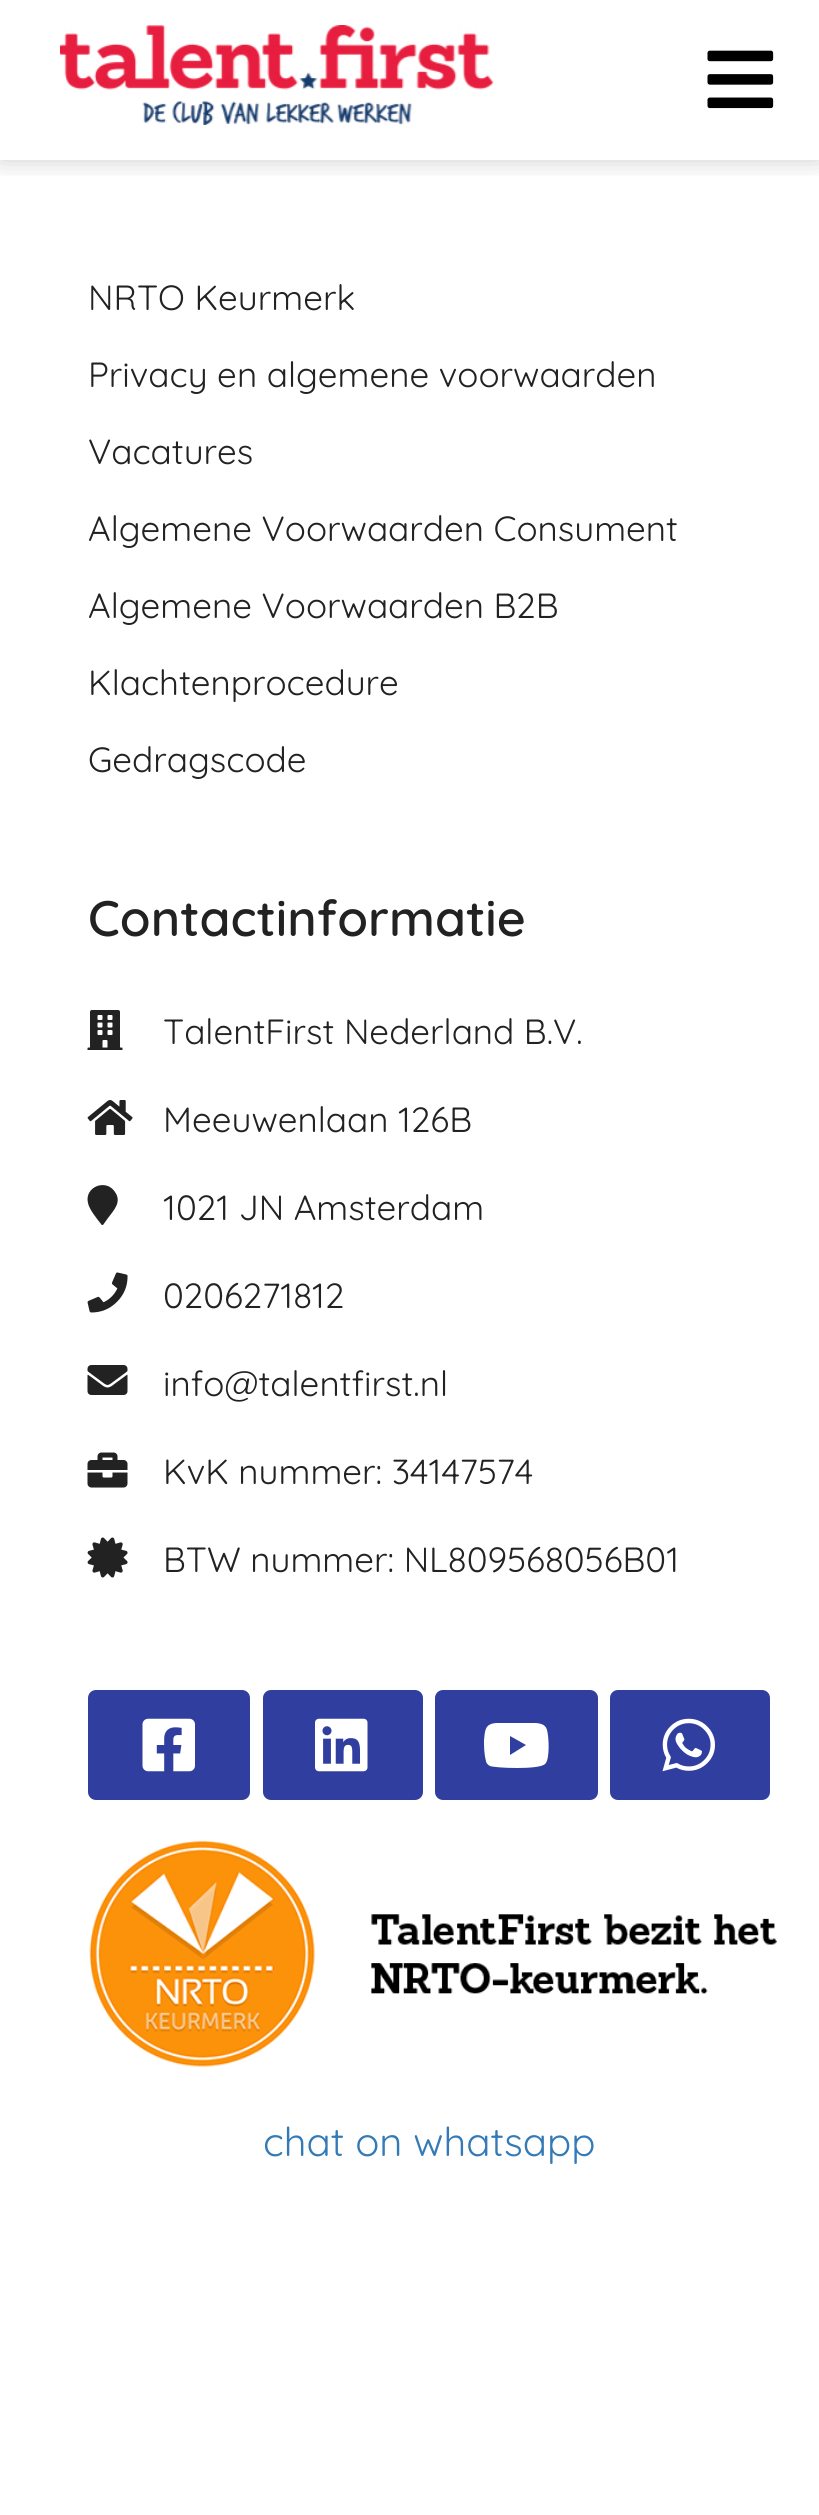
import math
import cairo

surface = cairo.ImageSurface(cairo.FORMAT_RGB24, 819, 2515)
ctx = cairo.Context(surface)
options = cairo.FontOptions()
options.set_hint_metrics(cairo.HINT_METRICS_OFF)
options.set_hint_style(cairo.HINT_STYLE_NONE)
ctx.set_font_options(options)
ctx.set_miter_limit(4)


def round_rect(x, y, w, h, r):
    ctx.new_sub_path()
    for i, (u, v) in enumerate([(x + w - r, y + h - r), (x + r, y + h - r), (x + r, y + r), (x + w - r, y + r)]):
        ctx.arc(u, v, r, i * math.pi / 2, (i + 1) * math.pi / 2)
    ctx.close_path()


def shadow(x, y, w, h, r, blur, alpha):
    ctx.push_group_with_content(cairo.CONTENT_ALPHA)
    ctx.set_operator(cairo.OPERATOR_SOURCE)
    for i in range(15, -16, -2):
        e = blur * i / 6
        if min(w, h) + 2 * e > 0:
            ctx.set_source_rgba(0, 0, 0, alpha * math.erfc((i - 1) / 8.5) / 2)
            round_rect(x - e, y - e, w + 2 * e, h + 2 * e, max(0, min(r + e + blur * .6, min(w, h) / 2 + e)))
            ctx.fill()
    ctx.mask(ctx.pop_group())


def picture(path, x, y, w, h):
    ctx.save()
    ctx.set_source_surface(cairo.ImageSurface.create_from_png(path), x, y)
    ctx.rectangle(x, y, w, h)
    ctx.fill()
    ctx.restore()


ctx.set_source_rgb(1, 1, 1)
ctx.paint()
ctx.save()
ctx.rectangle(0, 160, 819, 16)
ctx.clip()
ctx.set_source_rgb(0, 0, 0)
shadow(0, 0, 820, 160, 0, 12.5, 0.2)
ctx.restore()
picture("img1.png", 60, 25, 434, 100)
picture("img2.png", 707, 50, 67, 59)
ctx.select_font_face("Quicksand")
ctx.set_font_size(35)
ctx.set_source_rgb(0.133, 0.133, 0.133)
ctx.move_to(88, 310)
ctx.show_text("NRTO Keurmerk")
ctx.move_to(88, 387)
ctx.show_text("Privacy en algemene voorwaarden")
ctx.move_to(88, 464)
ctx.show_text("Vacatures")
ctx.move_to(88, 541)
ctx.show_text("Algemene Voorwaarden Consument")
ctx.move_to(88, 618)
ctx.show_text("Algemene Voorwaarden B2B")
ctx.move_to(88, 695)
ctx.show_text("Klachtenprocedure")
ctx.move_to(88, 772)
ctx.show_text("Gedragscode")
ctx.select_font_face("Quicksand SemiBold")
ctx.set_font_size(50)
ctx.move_to(88, 936)
ctx.show_text("Contactinformatie")
picture("img3.png", 87, 1010, 36, 40)
ctx.select_font_face("Quicksand")
ctx.set_font_size(35)
ctx.move_to(163, 1044)
ctx.show_text("TalentFirst Nederland B.V.")
picture("img4.png", 87, 1100, 46, 35)
ctx.move_to(163, 1132)
ctx.show_text("Meeuwenlaan 126B")
ctx.new_path()
ctx.move_to(101, 1224)
ctx.curve_to(97, 1219, 89, 1209, 88, 1203)
ctx.curve_to(84, 1187, 106, 1178, 115, 1192)
ctx.curve_to(122, 1202, 114, 1210, 108, 1218)
ctx.line_to(103, 1225)
ctx.curve_to(103, 1225, 101, 1225, 101, 1224)
ctx.close_path()
ctx.fill()
ctx.move_to(163, 1220)
ctx.show_text("1021 JN Amsterdam")
picture("img5.png", 87, 1272, 41, 41)
ctx.move_to(163, 1308)
ctx.show_text("0206271812")
picture("img6.png", 87, 1365, 41, 30)
ctx.move_to(163, 1396)
ctx.show_text("info@talentfirst.nl")
picture("img7.png", 87, 1452, 41, 36)
ctx.move_to(163, 1484)
ctx.show_text("KvK nummer: 34147574")
picture("img8.png", 87, 1537, 41, 41)
ctx.move_to(163, 1572)
ctx.show_text("BTW nummer: NL809568056B01")
ctx.set_source_rgb(0.188, 0.247, 0.624)
round_rect(88, 1690, 162, 110, 8)
ctx.fill()
picture("img9.png", 142, 1718, 53, 54)
round_rect(263, 1690, 160, 110, 8)
ctx.fill()
picture("img10.png", 315, 1718, 53, 54)
round_rect(435, 1690, 163, 110, 8)
ctx.fill()
ctx.set_source_rgb(1, 1, 1)
ctx.new_path()
ctx.move_to(547, 1730)
ctx.curve_to(549, 1737, 550, 1760, 545, 1764)
ctx.curve_to(539, 1770, 495, 1768, 490, 1766)
ctx.curve_to(488, 1765, 486, 1763, 486, 1761)
ctx.curve_to(484, 1754, 484, 1746, 484, 1740)
ctx.curve_to(485, 1730, 485, 1724, 496, 1723)
ctx.line_to(510, 1723)
ctx.line_to(529, 1723)
ctx.curve_to(535, 1723, 545, 1722, 547, 1730)
ctx.close_path()
ctx.move_to(510, 1755)
ctx.line_to(526, 1745)
ctx.line_to(510, 1736)
ctx.close_path()
ctx.fill()
ctx.set_source_rgb(0.188, 0.247, 0.624)
round_rect(610, 1690, 160, 110, 8)
ctx.fill()
picture("img11.png", 662, 1718, 53, 54)
picture("img12.png", 89, 1840, 688, 227)
ctx.set_font_size(40)
ctx.set_source_rgb(0.2, 0.478, 0.718)
ctx.move_to(263, 2156)
ctx.show_text("chat on whatsapp")
surface.write_to_png("page.png")
